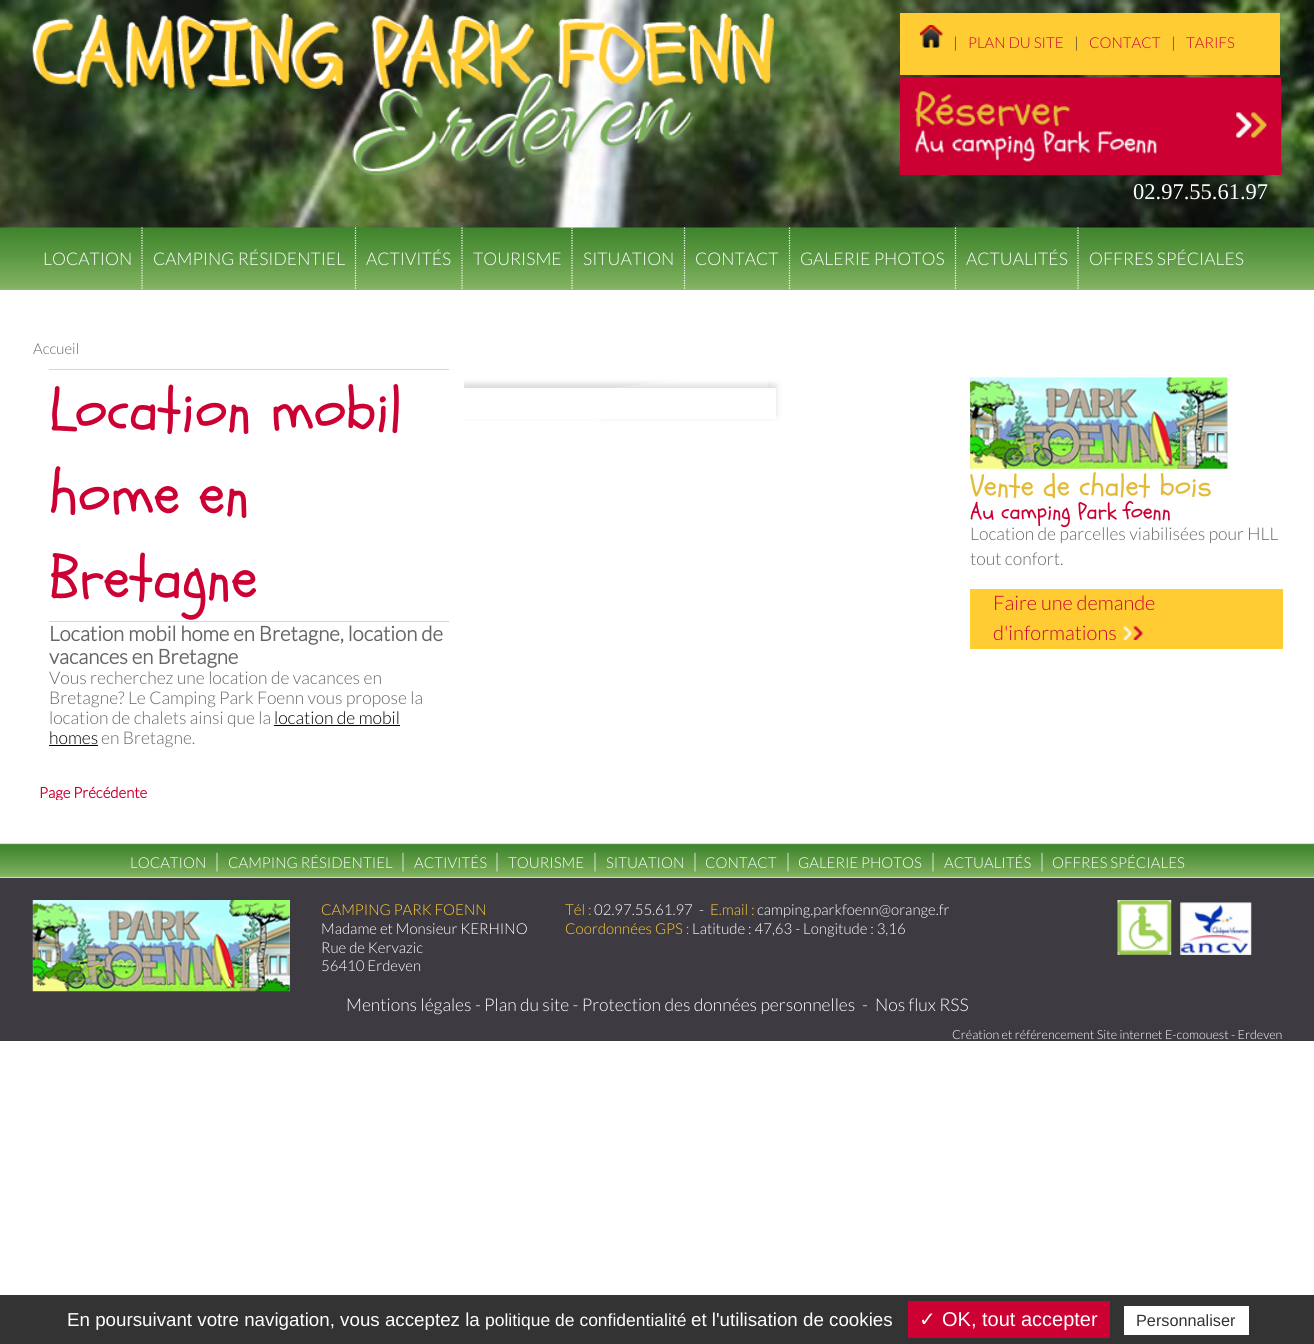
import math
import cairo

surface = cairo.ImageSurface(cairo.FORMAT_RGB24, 1314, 1344)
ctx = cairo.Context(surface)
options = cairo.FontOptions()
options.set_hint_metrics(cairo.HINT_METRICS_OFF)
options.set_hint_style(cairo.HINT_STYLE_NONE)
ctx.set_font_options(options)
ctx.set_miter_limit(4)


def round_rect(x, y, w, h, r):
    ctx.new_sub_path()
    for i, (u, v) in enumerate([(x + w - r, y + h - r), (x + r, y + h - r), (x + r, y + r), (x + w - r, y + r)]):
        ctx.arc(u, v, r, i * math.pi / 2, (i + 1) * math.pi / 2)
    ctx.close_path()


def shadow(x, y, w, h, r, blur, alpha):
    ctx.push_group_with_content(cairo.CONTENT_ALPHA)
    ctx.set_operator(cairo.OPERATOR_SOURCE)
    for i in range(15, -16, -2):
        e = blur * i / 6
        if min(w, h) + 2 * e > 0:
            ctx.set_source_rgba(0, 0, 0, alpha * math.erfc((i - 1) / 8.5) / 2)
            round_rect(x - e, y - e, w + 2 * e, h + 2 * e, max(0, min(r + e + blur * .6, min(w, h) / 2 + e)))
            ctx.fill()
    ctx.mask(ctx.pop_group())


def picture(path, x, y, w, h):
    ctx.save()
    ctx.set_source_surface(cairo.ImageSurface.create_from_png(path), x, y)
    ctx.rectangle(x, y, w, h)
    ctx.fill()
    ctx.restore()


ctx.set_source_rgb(1, 1, 1)
ctx.paint()
picture("img1.png", 0, 0, 1314, 228)
picture("img2.png", 32, 12, 742, 168)
ctx.set_source_rgb(1, 0.8, 0.2)
ctx.rectangle(900, 13, 380, 62)
ctx.fill()
picture("img3.png", 920, 25, 23, 23)
ctx.select_font_face("Lato Light")
ctx.set_font_size(15)
ctx.set_source_rgb(0.118, 0.114, 0.125)
ctx.move_to(953, 48)
ctx.show_text("|")
ctx.set_source_rgb(0.8, 0, 0.2)
ctx.move_to(968, 48)
ctx.show_text("PLAN DU SITE")
ctx.set_source_rgb(0.118, 0.114, 0.125)
ctx.move_to(1074, 48)
ctx.show_text("|")
ctx.set_source_rgb(0.8, 0, 0.2)
ctx.move_to(1089, 48)
ctx.show_text("CONTACT")
ctx.set_source_rgb(0.118, 0.114, 0.125)
ctx.move_to(1171, 48)
ctx.show_text("|")
ctx.set_source_rgb(0.8, 0, 0.2)
ctx.move_to(1186, 48)
ctx.show_text("TARIFS")
picture("img4.png", 900, 77, 382, 98)
ctx.select_font_face("Liberation Serif")
ctx.set_font_size(22.5)
ctx.set_source_rgb(1, 1, 1)
ctx.move_to(1133, 199)
ctx.show_text("02.97.55.61.97")
picture("img5.png", 0, 227, 1314, 63)
ctx.select_font_face("Lato Light")
ctx.set_font_size(17.5)
ctx.move_to(43, 265)
ctx.show_text("LOCATION")
ctx.new_path()
ctx.move_to(142, 227.5)
ctx.line_to(142, 289)
ctx.set_line_width(1.2)
ctx.set_dash([1.25, 1.25])
ctx.stroke()
ctx.move_to(153, 265)
ctx.show_text("CAMPING RÉSIDENTIEL")
ctx.new_path()
ctx.move_to(355.5, 227.5)
ctx.line_to(355.5, 289)
ctx.stroke()
ctx.move_to(366, 265)
ctx.show_text("ACTIVITÉS")
ctx.new_path()
ctx.move_to(462, 227.5)
ctx.line_to(462, 289)
ctx.stroke()
ctx.move_to(473, 265)
ctx.show_text("TOURISME")
ctx.new_path()
ctx.move_to(572, 227.5)
ctx.line_to(572, 289)
ctx.stroke()
ctx.move_to(583, 265)
ctx.show_text("SITUATION")
ctx.new_path()
ctx.move_to(684.5, 227.5)
ctx.line_to(684.5, 289)
ctx.stroke()
ctx.move_to(695, 265)
ctx.show_text("CONTACT")
ctx.new_path()
ctx.move_to(789.5, 227.5)
ctx.line_to(789.5, 289)
ctx.stroke()
ctx.move_to(800, 265)
ctx.show_text("GALERIE PHOTOS")
ctx.new_path()
ctx.move_to(955.5, 227.5)
ctx.line_to(955.5, 289)
ctx.stroke()
ctx.move_to(966, 265)
ctx.show_text("ACTUALITÉS")
ctx.new_path()
ctx.move_to(1078, 227.5)
ctx.line_to(1078, 289)
ctx.stroke()
ctx.move_to(1089, 265)
ctx.show_text("OFFRES SPÉCIALES")
ctx.set_font_size(15)
ctx.set_source_rgb(0.4, 0.4, 0.4)
ctx.move_to(33, 354)
ctx.show_text("Accueil")
ctx.set_source_rgb(0.839, 0.839, 0.843)
ctx.rectangle(49, 369, 400, 1)
ctx.fill()
ctx.rectangle(49, 621, 400, 1)
ctx.fill()
ctx.select_font_face("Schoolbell")
ctx.set_font_size(60)
ctx.set_source_rgb(0.8, 0, 0.2)
ctx.move_to(49, 430)
ctx.show_text("Location mobil")
ctx.move_to(49, 514)
ctx.show_text("home en")
ctx.move_to(49, 598)
ctx.show_text("Bretagne")
ctx.select_font_face("Lato", cairo.FONT_SLANT_NORMAL, cairo.FONT_WEIGHT_BOLD)
ctx.set_font_size(20.5)
ctx.set_source_rgb(0.4, 0.4, 0.4)
ctx.move_to(49, 641)
ctx.show_text("Location mobil home en Bretagne, location de")
ctx.move_to(49, 664)
ctx.show_text("vacances en Bretagne")
ctx.select_font_face("Lato Light")
ctx.set_font_size(17.5)
ctx.move_to(49, 684)
ctx.show_text("Vous recherchez une location de vacances en")
ctx.move_to(49, 704)
ctx.show_text("Bretagne? Le Camping Park Foenn vous propose la")
ctx.move_to(49, 724)
ctx.show_text("location de chalets ainsi que la")
ctx.set_source_rgb(0, 0, 0)
ctx.move_to(274, 724)
ctx.show_text("location de mobil")
ctx.rectangle(274, 725, 126, 1)
ctx.fill()
ctx.move_to(49, 744)
ctx.show_text("homes")
ctx.rectangle(49, 745, 49, 1)
ctx.fill()
ctx.set_source_rgb(0.4, 0.4, 0.4)
ctx.move_to(101, 744)
ctx.show_text("en Bretagne.")
ctx.save()
ctx.rectangle(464, 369, 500, 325)
ctx.clip()
ctx.set_source_rgb(0.871, 0.859, 0.863)
shadow(464, 385, 305, 31, 0, 3, 1)
ctx.restore()
ctx.save()
ctx.rectangle(464, 369, 500, 325)
ctx.clip()
ctx.set_source_rgb(1, 1, 1)
ctx.new_path()
ctx.move_to(463, 406)
ctx.line_to(766, 369)
ctx.line_to(769, 400)
ctx.line_to(467, 437)
ctx.close_path()
ctx.fill()
ctx.restore()
ctx.save()
ctx.rectangle(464, 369, 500, 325)
ctx.clip()
ctx.set_source_rgb(0.871, 0.859, 0.863)
shadow(464, 385, 312, 31, 0, 3, 1)
ctx.restore()
ctx.set_source_rgb(1, 1, 1)
ctx.rectangle(464, 388, 312, 31)
ctx.fill()
ctx.save()
ctx.rectangle(33, 340, 931, 460)
ctx.clip()
ctx.select_font_face("Lato", cairo.FONT_SLANT_NORMAL, cairo.FONT_WEIGHT_BOLD)
ctx.set_font_size(15)
ctx.set_source_rgb(0.8, 0, 0.2)
ctx.move_to(39, 798)
ctx.show_text("Page Précédente")
ctx.restore()
picture("img6.png", 970, 377, 258, 92)
ctx.select_font_face("Schoolbell")
ctx.set_font_size(30)
ctx.set_source_rgb(0.894, 0.733, 0.216)
ctx.move_to(970, 496)
ctx.show_text("Vente de chalet bois")
ctx.set_font_size(22.5)
ctx.set_source_rgb(0.8, 0, 0.2)
ctx.move_to(970, 519)
ctx.show_text("Au camping Park foenn")
ctx.select_font_face("Lato Light")
ctx.set_font_size(17.5)
ctx.set_source_rgb(0.4, 0.4, 0.4)
ctx.move_to(970, 540)
ctx.show_text("Location de parcelles viabilisées pour HLL")
ctx.move_to(970, 565)
ctx.show_text("tout confort.")
ctx.set_source_rgb(1, 0.8, 0.2)
ctx.rectangle(970, 589, 313, 60)
ctx.fill()
ctx.set_font_size(20)
ctx.set_source_rgb(0.8, 0, 0.2)
ctx.move_to(993, 610)
ctx.show_text("Faire une demande")
ctx.move_to(993, 640)
ctx.show_text("d'informations")
picture("img7.png", 1123, 626, 20, 14)
picture("img8.png", 0, 843, 1314, 35)
ctx.set_font_size(15)
ctx.set_source_rgb(1, 1, 1)
ctx.move_to(130, 868)
ctx.show_text("LOCATION")
ctx.set_font_size(20)
ctx.move_to(214, 868)
ctx.show_text("|")
ctx.set_font_size(15)
ctx.move_to(228, 868)
ctx.show_text("CAMPING RÉSIDENTIEL")
ctx.set_font_size(20)
ctx.move_to(400, 868)
ctx.show_text("|")
ctx.set_font_size(15)
ctx.move_to(414, 868)
ctx.show_text("ACTIVITÉS")
ctx.set_font_size(20)
ctx.move_to(494, 868)
ctx.show_text("|")
ctx.set_font_size(15)
ctx.move_to(508, 868)
ctx.show_text("TOURISME")
ctx.set_font_size(20)
ctx.move_to(592, 868)
ctx.show_text("|")
ctx.set_font_size(15)
ctx.move_to(606, 868)
ctx.show_text("SITUATION")
ctx.set_font_size(20)
ctx.move_to(692, 868)
ctx.show_text("|")
ctx.set_font_size(15)
ctx.move_to(705, 868)
ctx.show_text("CONTACT")
ctx.set_font_size(20)
ctx.move_to(785, 868)
ctx.show_text("|")
ctx.set_font_size(15)
ctx.move_to(798, 868)
ctx.show_text("GALERIE PHOTOS")
ctx.set_font_size(20)
ctx.move_to(930, 868)
ctx.show_text("|")
ctx.set_font_size(15)
ctx.move_to(944, 868)
ctx.show_text("ACTUALITÉS")
ctx.set_font_size(20)
ctx.move_to(1039, 868)
ctx.show_text("|")
ctx.set_font_size(15)
ctx.move_to(1052, 868)
ctx.show_text("OFFRES SPÉCIALES")
ctx.set_source_rgb(0.239, 0.231, 0.255)
ctx.rectangle(0, 878, 1314, 163)
ctx.fill()
picture("img9.png", 32, 900, 258, 92)
ctx.set_source_rgb(1, 0.8, 0.2)
ctx.move_to(321, 915)
ctx.show_text("CAMPING PARK FOENN")
ctx.set_source_rgb(1, 1, 1)
ctx.move_to(321, 934)
ctx.show_text("Madame et Monsieur KERHINO")
ctx.move_to(321, 953)
ctx.show_text("Rue de Kervazic")
ctx.move_to(321, 971)
ctx.show_text("56410 Erdeven")
ctx.set_source_rgb(1, 0.8, 0.2)
ctx.move_to(565, 915)
ctx.show_text("Tél :")
ctx.set_source_rgb(1, 1, 1)
ctx.move_to(594, 915)
ctx.show_text("02.97.55.61.97")
ctx.move_to(699, 915)
ctx.show_text("-")
ctx.set_source_rgb(1, 0.8, 0.2)
ctx.move_to(710, 915)
ctx.show_text("E.mail :")
ctx.set_source_rgb(1, 1, 1)
ctx.move_to(757, 915)
ctx.show_text("camping.parkfoenn@orange.fr")
ctx.set_source_rgb(1, 0.8, 0.2)
ctx.move_to(565, 934)
ctx.show_text("Coordonnées GPS :")
ctx.set_source_rgb(1, 1, 1)
ctx.move_to(692, 934)
ctx.show_text("Latitude : 47,63 - Longitude : 3,16")
picture("img10.png", 1117, 900, 55, 55)
picture("img11.png", 1180, 902, 72, 53)
ctx.set_font_size(17.5)
ctx.move_to(346, 1011)
ctx.show_text("Mentions légales - Plan du site - Protection des données personnelles")
ctx.move_to(862, 1011)
ctx.show_text("-")
ctx.move_to(875, 1011)
ctx.show_text("Nos flux RSS")
ctx.set_font_size(12.5)
ctx.move_to(952, 1039)
ctx.show_text("Création et référencement Site internet E-comouest - Erdeven")
ctx.set_source_rgb(0.2, 0.2, 0.2)
ctx.rectangle(0, 1295, 1314, 49)
ctx.fill()
ctx.select_font_face("Liberation Sans")
ctx.set_font_size(18.75)
ctx.set_source_rgb(1, 1, 1)
ctx.move_to(67, 1326)
ctx.show_text("En poursuivant votre navigation, vous acceptez la")
ctx.set_font_size(17.5)
ctx.move_to(485, 1326)
ctx.show_text("politique de confidentialité")
ctx.set_font_size(18.75)
ctx.move_to(691, 1326)
ctx.show_text("et l'utilisation de cookies")
ctx.set_source_rgb(0.8, 0, 0.2)
ctx.rectangle(908, 1301, 202, 37)
ctx.fill()
ctx.select_font_face("DejaVu Sans")
ctx.set_font_size(20)
ctx.set_source_rgb(1, 1, 1)
ctx.move_to(919, 1326)
ctx.show_text("✓")
ctx.select_font_face("Liberation Sans")
ctx.move_to(942, 1326)
ctx.show_text("OK, tout accepter")
ctx.rectangle(1124, 1306, 125, 29)
ctx.fill()
ctx.set_font_size(16.25)
ctx.set_source_rgb(0.2, 0.2, 0.2)
ctx.move_to(1136, 1326)
ctx.show_text("Personnaliser")
surface.write_to_png("page.png")
